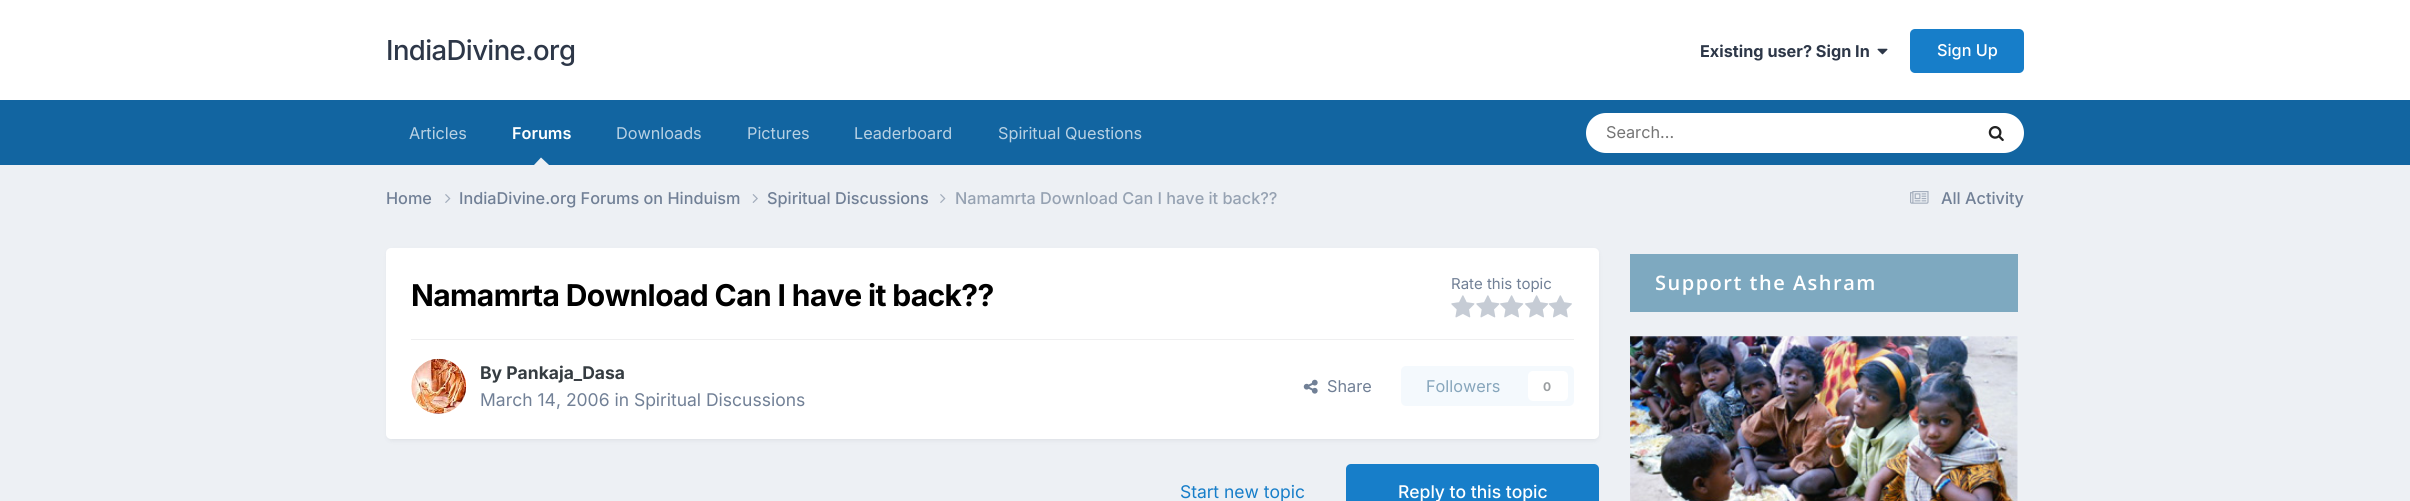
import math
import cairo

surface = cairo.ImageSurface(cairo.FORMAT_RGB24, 2410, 501)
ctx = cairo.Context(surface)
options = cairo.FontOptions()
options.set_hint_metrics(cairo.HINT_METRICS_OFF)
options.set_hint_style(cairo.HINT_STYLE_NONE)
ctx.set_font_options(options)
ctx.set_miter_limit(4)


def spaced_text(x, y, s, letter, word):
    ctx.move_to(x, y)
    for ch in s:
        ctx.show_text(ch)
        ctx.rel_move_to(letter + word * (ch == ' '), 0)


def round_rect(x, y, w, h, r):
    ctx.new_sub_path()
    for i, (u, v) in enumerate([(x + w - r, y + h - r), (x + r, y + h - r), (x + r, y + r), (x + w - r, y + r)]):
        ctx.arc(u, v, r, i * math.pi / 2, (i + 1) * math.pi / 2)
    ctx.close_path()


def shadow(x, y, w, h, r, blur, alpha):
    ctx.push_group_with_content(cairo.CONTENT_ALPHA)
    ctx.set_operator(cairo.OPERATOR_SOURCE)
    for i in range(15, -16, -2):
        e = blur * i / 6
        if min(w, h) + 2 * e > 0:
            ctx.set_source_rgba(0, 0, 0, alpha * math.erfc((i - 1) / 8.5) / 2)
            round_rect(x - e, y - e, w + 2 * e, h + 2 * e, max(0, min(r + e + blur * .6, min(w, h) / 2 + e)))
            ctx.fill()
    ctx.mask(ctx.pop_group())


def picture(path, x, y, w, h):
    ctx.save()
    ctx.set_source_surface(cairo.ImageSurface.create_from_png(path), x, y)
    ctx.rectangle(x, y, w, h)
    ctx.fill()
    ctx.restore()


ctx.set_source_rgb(0.929, 0.941, 0.957)
ctx.paint()
ctx.set_source_rgb(1, 1, 1)
ctx.rectangle(0, 0, 2410, 100)
ctx.fill()
ctx.select_font_face("Inter Medium")
ctx.set_font_size(27.5)
ctx.set_source_rgb(0.176, 0.216, 0.282)
spaced_text(386, 60, "IndiaDivine.org", -0.6, 0)
ctx.select_font_face("Inter", cairo.FONT_SLANT_NORMAL, cairo.FONT_WEIGHT_BOLD)
ctx.set_font_size(16.25)
ctx.move_to(1700, 57)
ctx.show_text("Existing user? Sign In")
picture("img1.png", 1877, 48, 11, 7)
ctx.set_source_rgb(0.09, 0.494, 0.788)
round_rect(1910, 29, 114, 44, 5)
ctx.fill()
ctx.select_font_face("Inter Medium")
ctx.set_source_rgb(1, 1, 1)
ctx.move_to(1937, 56)
ctx.show_text("Sign Up")
ctx.set_source_rgb(0.071, 0.396, 0.631)
ctx.rectangle(0, 100, 2410, 65)
ctx.fill()
ctx.select_font_face("Inter")
ctx.set_source_rgb(0.722, 0.82, 0.89)
ctx.move_to(409, 139)
ctx.show_text("Articles")
ctx.select_font_face("Inter SemiBold")
ctx.set_source_rgb(1, 1, 1)
ctx.move_to(512, 139)
ctx.show_text("Forums")
ctx.set_source_rgb(0.929, 0.941, 0.957)
ctx.new_path()
ctx.move_to(549, 165)
ctx.line_to(534, 165)
ctx.line_to(541, 157.5)
ctx.close_path()
ctx.fill()
ctx.select_font_face("Inter")
ctx.set_source_rgb(0.722, 0.82, 0.89)
ctx.move_to(616, 139)
ctx.show_text("Downloads")
ctx.move_to(747, 139)
ctx.show_text("Pictures")
ctx.move_to(854, 139)
ctx.show_text("Leaderboard")
ctx.move_to(998, 139)
ctx.show_text("Spiritual Questions")
ctx.set_source_rgb(1, 1, 1)
round_rect(1586, 113, 438, 40, 20)
ctx.fill()
ctx.set_source_rgb(0.459, 0.459, 0.459)
ctx.move_to(1606, 138)
ctx.show_text("Search...")
picture("img2.png", 1988, 126, 16, 16)
ctx.select_font_face("Inter Medium")
ctx.set_source_rgb(0.443, 0.502, 0.588)
ctx.move_to(386, 204)
ctx.show_text("Home")
picture("img3.png", 445, 194, 6, 9)
ctx.move_to(459, 204)
ctx.show_text("IndiaDivine.org Forums on Hinduism")
picture("img4.png", 752, 194, 6, 9)
ctx.move_to(767, 204)
ctx.show_text("Spiritual Discussions")
picture("img3.png", 940, 194, 6, 9)
ctx.set_source_rgb(0.588, 0.635, 0.698)
ctx.move_to(955, 204)
ctx.show_text("Namamrta Download Can I have it back??")
picture("img5.png", 1910, 191, 19, 13)
ctx.set_source_rgb(0.443, 0.502, 0.588)
ctx.move_to(1941, 204)
ctx.show_text("All Activity")
ctx.set_source_rgb(0.176, 0.216, 0.282)
shadow(388, 251, 1210, 189, 4, 2.5, 0.1)
ctx.set_source_rgb(1, 1, 1)
round_rect(386, 248, 1213, 191, 5)
ctx.fill()
ctx.select_font_face("Inter", cairo.FONT_SLANT_NORMAL, cairo.FONT_WEIGHT_BOLD)
ctx.set_font_size(30)
ctx.set_source_rgb(0, 0, 0)
spaced_text(411, 306, "Namamrta Download Can I have it back??", -0.6, 0)
ctx.select_font_face("Inter")
ctx.set_font_size(15)
ctx.set_source_rgb(0.443, 0.502, 0.588)
ctx.move_to(1451, 289)
ctx.show_text("Rate this topic")
picture("img6.png", 1451, 295, 24, 23)
picture("img6.png", 1476, 295, 24, 23)
picture("img7.png", 1500, 295, 24, 23)
picture("img7.png", 1525, 295, 24, 23)
picture("img8.png", 1548, 295, 24, 23)
ctx.set_source_rgb(0.937, 0.937, 0.941)
ctx.rectangle(411, 339, 1163, 1)
ctx.fill()
picture("img9.png", 411, 358, 56, 56)
ctx.select_font_face("Inter", cairo.FONT_SLANT_NORMAL, cairo.FONT_WEIGHT_BOLD)
ctx.set_font_size(17.5)
ctx.set_source_rgb(0.208, 0.235, 0.255)
ctx.move_to(480, 379)
ctx.show_text("By Pankaja_Dasa")
ctx.select_font_face("Inter")
ctx.set_source_rgb(0.443, 0.502, 0.588)
ctx.move_to(480, 406)
ctx.show_text("March 14, 2006 in Spiritual Discussions")
picture("img10.png", 1303, 379, 15, 15)
ctx.set_font_size(16.25)
ctx.move_to(1327, 392)
ctx.show_text("Share")
ctx.set_source_rgb(0.957, 0.976, 0.992)
round_rect(1401, 366, 173, 40, 5)
ctx.fill()
ctx.set_source_rgb(0.529, 0.651, 0.737)
ctx.move_to(1426, 392)
ctx.show_text("Followers")
ctx.set_source_rgb(1, 1, 1)
round_rect(1528, 371, 40, 30, 5)
ctx.fill()
ctx.select_font_face("Inter", cairo.FONT_SLANT_NORMAL, cairo.FONT_WEIGHT_BOLD)
ctx.set_font_size(12)
ctx.set_source_rgb(0.604, 0.62, 0.627)
ctx.move_to(1543, 391)
ctx.show_text("0")
ctx.select_font_face("Inter")
ctx.set_font_size(17.5)
ctx.set_source_rgb(0.09, 0.494, 0.788)
ctx.move_to(1180, 498)
ctx.show_text("Start new topic")
round_rect(1346, 464, 253, 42, 5)
ctx.fill()
ctx.select_font_face("Inter Medium")
ctx.set_source_rgb(1, 1, 1)
ctx.move_to(1398, 498)
ctx.show_text("Reply to this topic")
ctx.set_source_rgb(0.494, 0.663, 0.753)
ctx.rectangle(1630, 254, 388, 58)
ctx.fill()
ctx.select_font_face("Open Sans SemiBold")
ctx.set_font_size(20)
ctx.set_source_rgb(1, 1, 1)
spaced_text(1655, 290, "Support the Ashram", 1.5, 0)
picture("img11.png", 1630, 336, 388, 165)
surface.write_to_png("page.png")
